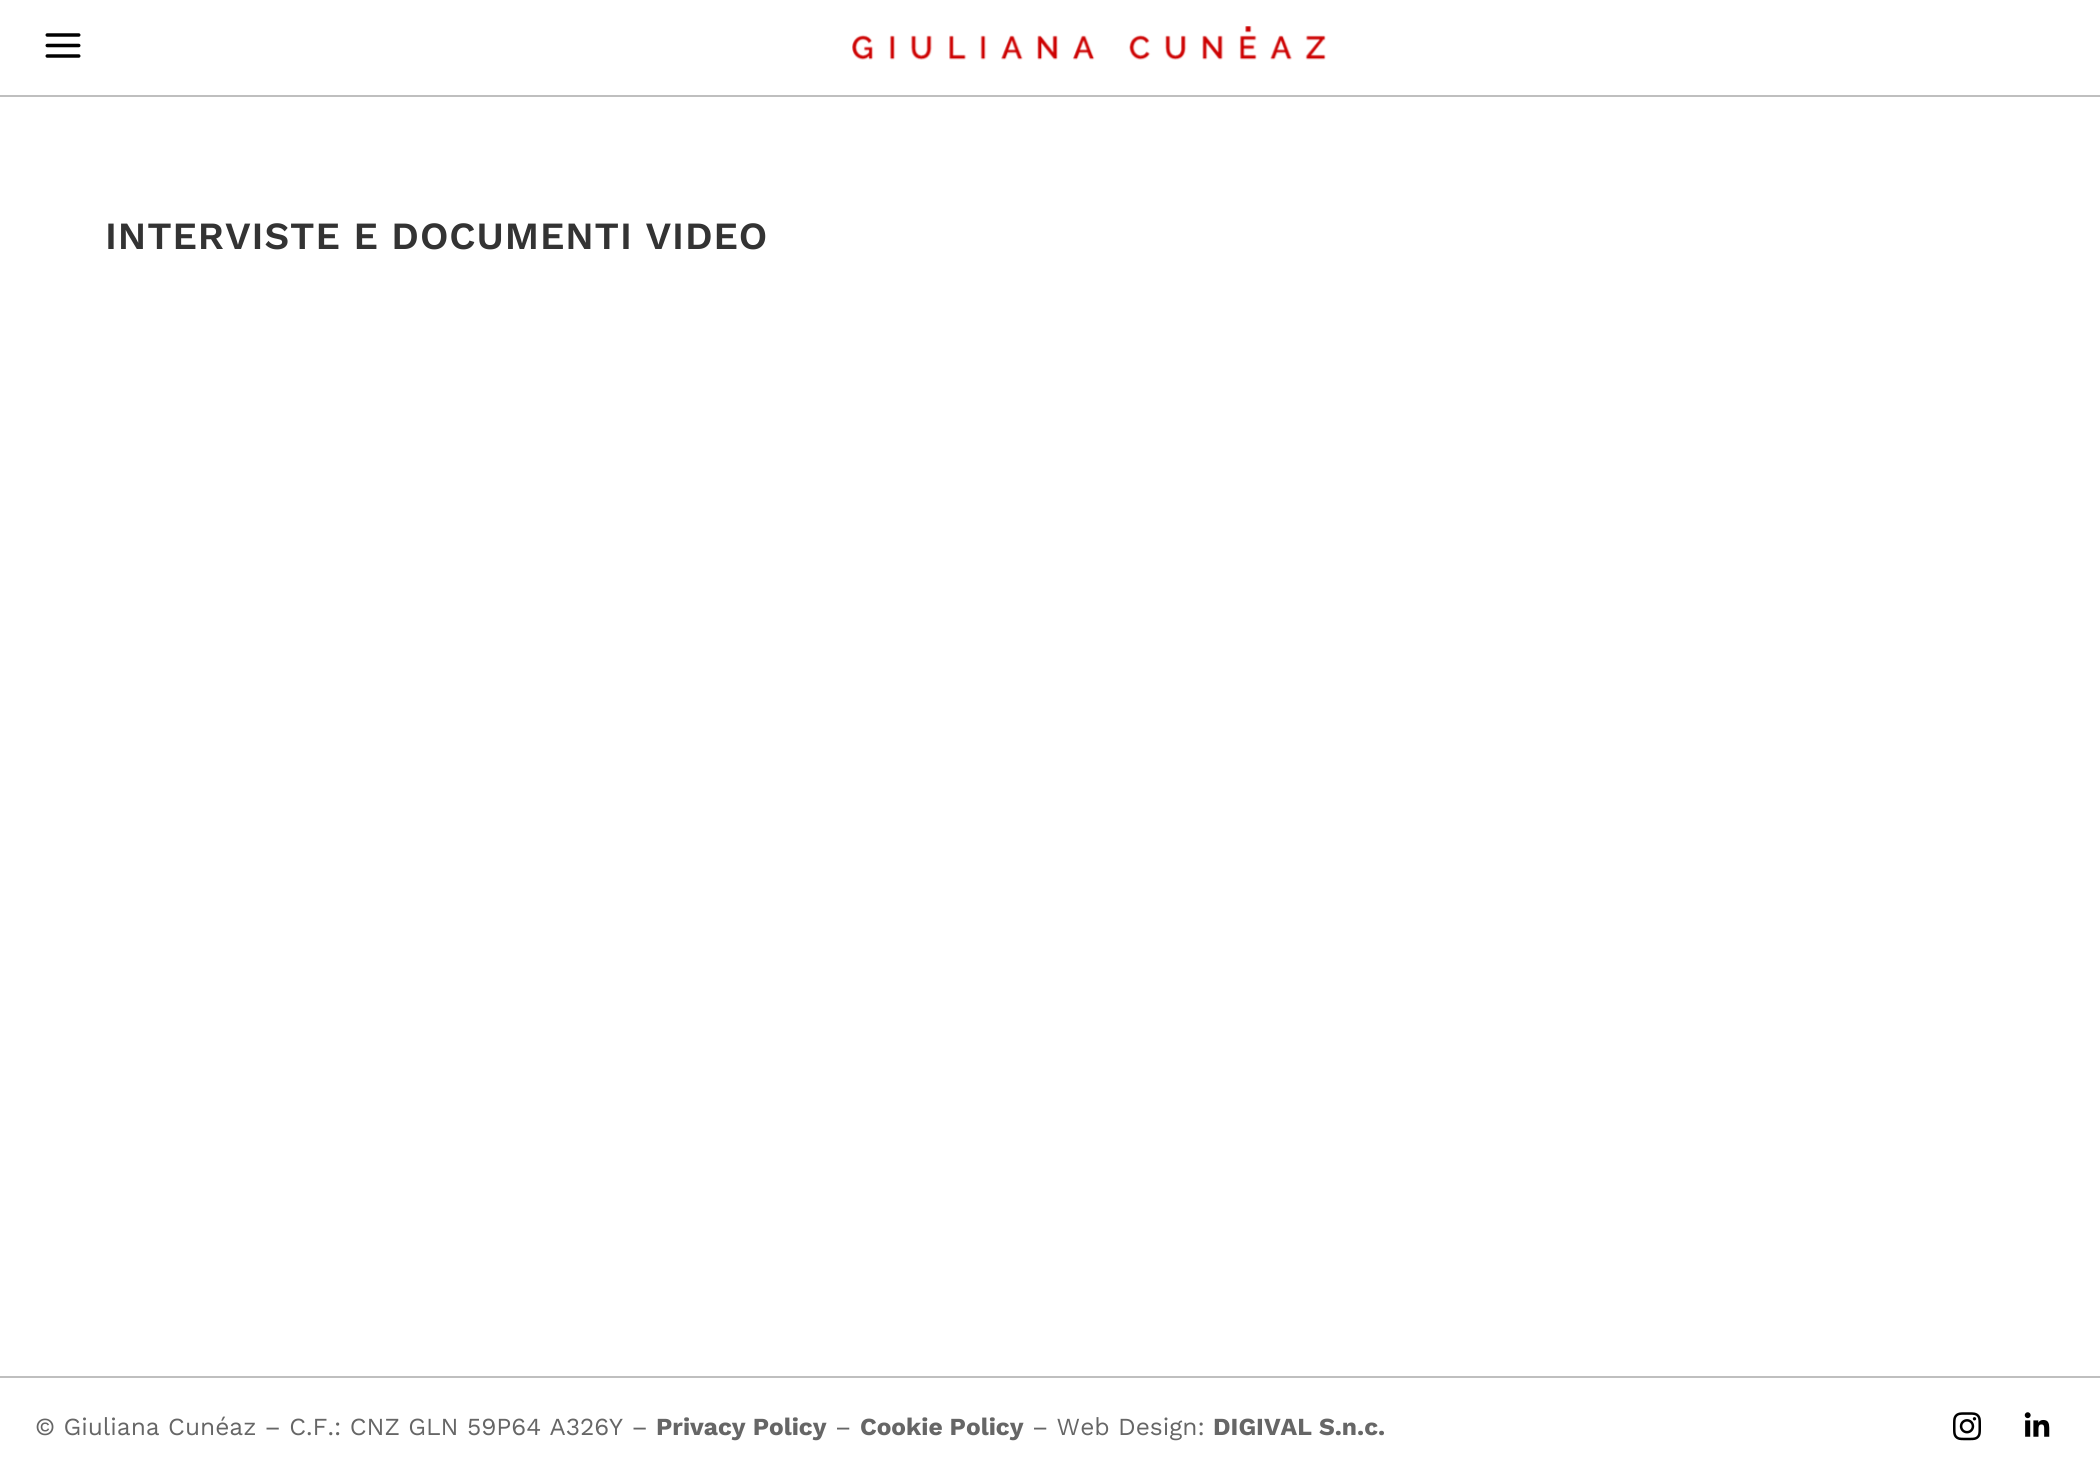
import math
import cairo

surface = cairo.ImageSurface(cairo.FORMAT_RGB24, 2100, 1478)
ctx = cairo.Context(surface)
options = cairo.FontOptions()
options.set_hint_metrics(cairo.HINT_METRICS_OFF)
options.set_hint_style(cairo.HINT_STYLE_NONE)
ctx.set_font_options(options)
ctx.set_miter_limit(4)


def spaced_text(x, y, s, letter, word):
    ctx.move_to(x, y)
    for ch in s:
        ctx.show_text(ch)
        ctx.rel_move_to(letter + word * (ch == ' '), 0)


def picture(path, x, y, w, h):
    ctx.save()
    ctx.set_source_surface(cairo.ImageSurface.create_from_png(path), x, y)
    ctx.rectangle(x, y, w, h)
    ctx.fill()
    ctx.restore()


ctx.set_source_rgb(1, 1, 1)
ctx.paint()
ctx.set_source_rgb(0.749, 0.749, 0.749)
ctx.rectangle(0, 95, 2100, 2)
ctx.fill()
picture("img1.png", 45, 33, 36, 25)
picture("img2.png", 852, 26, 474, 34)
ctx.select_font_face("Work Sans SemiBold")
ctx.set_font_size(38.5)
ctx.set_source_rgb(0.2, 0.2, 0.2)
spaced_text(105, 249, "INTERVISTE E DOCUMENTI VIDEO", 0.9, 0)
ctx.set_source_rgb(0.749, 0.749, 0.749)
ctx.rectangle(0, 1376, 2100, 2)
ctx.fill()
ctx.select_font_face("Work Sans")
ctx.set_font_size(24.5)
ctx.set_source_rgb(0.4, 0.4, 0.4)
ctx.move_to(35, 1435)
ctx.show_text("© Giuliana Cunéaz – C.F.: CNZ GLN 59P64 A326Y –")
ctx.select_font_face("Work Sans", cairo.FONT_SLANT_NORMAL, cairo.FONT_WEIGHT_BOLD)
ctx.move_to(656, 1435)
ctx.show_text("Privacy Policy")
ctx.select_font_face("Work Sans")
ctx.move_to(835, 1435)
ctx.show_text("–")
ctx.select_font_face("Work Sans", cairo.FONT_SLANT_NORMAL, cairo.FONT_WEIGHT_BOLD)
ctx.move_to(860, 1435)
ctx.show_text("Cookie Policy")
ctx.select_font_face("Work Sans")
ctx.move_to(1032, 1435)
ctx.show_text("– Web Design:")
ctx.select_font_face("Work Sans", cairo.FONT_SLANT_NORMAL, cairo.FONT_WEIGHT_BOLD)
ctx.move_to(1213, 1435)
ctx.show_text("DIGIVAL S.n.c.")
picture("img3.png", 1953, 1412, 28, 29)
picture("img4.png", 2024, 1412, 26, 25)
surface.write_to_png("page.png")
